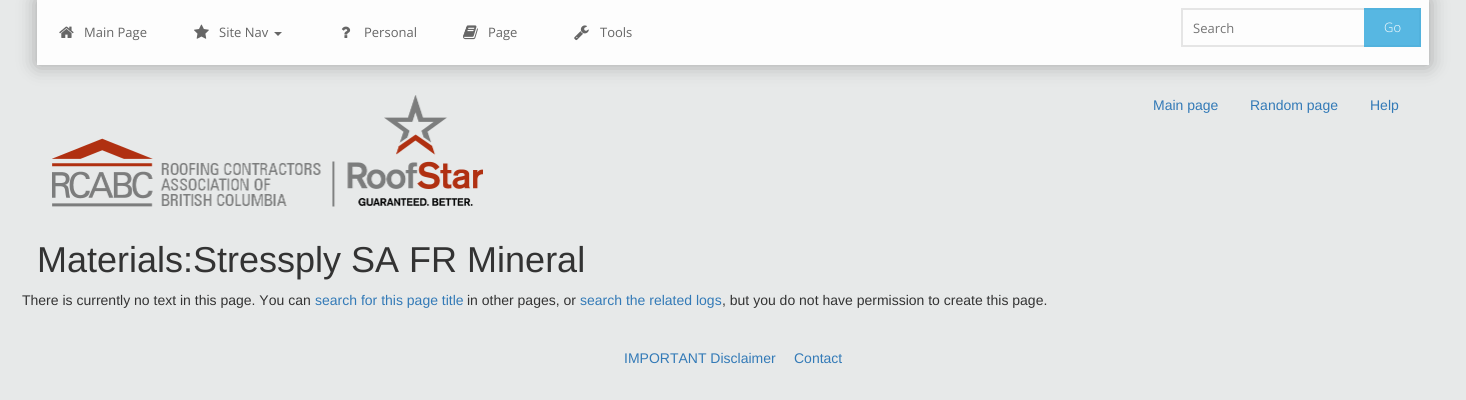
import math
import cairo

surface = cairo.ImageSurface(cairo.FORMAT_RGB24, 1466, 400)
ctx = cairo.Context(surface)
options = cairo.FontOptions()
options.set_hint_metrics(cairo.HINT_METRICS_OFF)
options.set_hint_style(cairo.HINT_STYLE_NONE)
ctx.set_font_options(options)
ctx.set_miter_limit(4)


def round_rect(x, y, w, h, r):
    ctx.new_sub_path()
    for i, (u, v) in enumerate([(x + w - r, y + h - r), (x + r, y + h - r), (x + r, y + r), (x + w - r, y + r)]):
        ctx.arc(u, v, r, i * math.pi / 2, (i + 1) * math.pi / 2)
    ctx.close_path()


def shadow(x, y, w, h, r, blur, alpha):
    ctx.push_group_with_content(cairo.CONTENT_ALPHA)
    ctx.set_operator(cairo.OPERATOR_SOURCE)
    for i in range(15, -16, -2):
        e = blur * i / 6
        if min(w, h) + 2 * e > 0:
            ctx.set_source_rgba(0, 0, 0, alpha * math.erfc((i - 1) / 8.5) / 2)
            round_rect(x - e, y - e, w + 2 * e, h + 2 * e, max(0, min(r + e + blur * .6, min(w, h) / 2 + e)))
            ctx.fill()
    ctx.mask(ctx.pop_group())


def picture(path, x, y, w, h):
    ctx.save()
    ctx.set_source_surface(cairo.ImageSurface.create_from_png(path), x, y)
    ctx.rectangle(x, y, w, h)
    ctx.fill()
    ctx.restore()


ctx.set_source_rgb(0.906, 0.914, 0.914)
ctx.paint()
picture("img6.png", 52, 95, 431, 112)
ctx.set_source_rgb(0, 0, 0)
shadow(37, 0, 1392, 65, 0, 10, 0.3)
ctx.set_source_rgb(0.992, 0.992, 0.992)
ctx.rectangle(37, 0, 1392, 65)
ctx.fill()
picture("img1.png", 59, 26, 15, 12)
ctx.select_font_face("Open Sans")
ctx.set_font_size(13)
ctx.set_source_rgb(0.4, 0.4, 0.4)
ctx.move_to(84, 37)
ctx.show_text("Main Page")
picture("img2.png", 194, 24, 15, 15)
ctx.move_to(219, 37)
ctx.show_text("Site Nav")
ctx.new_path()
ctx.move_to(274, 32)
ctx.line_to(282, 32)
ctx.line_to(278, 36)
ctx.close_path()
ctx.fill()
picture("img3.png", 341, 26, 10, 12)
ctx.move_to(364, 37)
ctx.show_text("Personal")
picture("img4.png", 463, 25, 15, 15)
ctx.move_to(488, 37)
ctx.show_text("Page")
picture("img5.png", 574, 25, 15, 16)
ctx.move_to(600, 37)
ctx.show_text("Tools")
ctx.rectangle(1182, 9, 238, 37)
ctx.set_source_rgb(0.898, 0.898, 0.898)
ctx.stroke()
ctx.set_source_rgb(0.459, 0.459, 0.459)
ctx.move_to(1193, 33)
ctx.show_text("Search")
ctx.set_source_rgba(0.176, 0.647, 0.855, 0.8)
ctx.rectangle(1364, 8, 57, 39)
ctx.fill()
ctx.select_font_face("Open Sans Light")
ctx.set_source_rgb(1, 1, 1)
ctx.move_to(1384, 32)
ctx.show_text("Go")
ctx.select_font_face("Liberation Sans")
ctx.set_font_size(14)
ctx.set_source_rgb(0.2, 0.478, 0.718)
ctx.move_to(1153, 110)
ctx.show_text("Main page")
ctx.move_to(1250, 110)
ctx.show_text("Random page")
ctx.move_to(1370, 110)
ctx.show_text("Help")
ctx.set_font_size(36)
ctx.set_source_rgb(0.2, 0.2, 0.2)
ctx.move_to(37, 272)
ctx.show_text("Materials:Stressply SA FR Mineral")
ctx.set_font_size(14)
ctx.move_to(22, 305)
ctx.show_text("There is currently no text in this page. You can")
ctx.set_source_rgb(0.2, 0.478, 0.718)
ctx.move_to(315, 305)
ctx.show_text("search for this page title")
ctx.set_source_rgb(0.2, 0.2, 0.2)
ctx.move_to(467, 305)
ctx.show_text("in other pages, or")
ctx.set_source_rgb(0.2, 0.478, 0.718)
ctx.move_to(580, 305)
ctx.show_text("search the related logs")
ctx.set_source_rgb(0.2, 0.2, 0.2)
ctx.move_to(722, 305)
ctx.show_text(", but you do not have permission to create this page.")
ctx.set_source_rgb(0.2, 0.478, 0.718)
ctx.move_to(624, 363)
ctx.show_text("IMPORTANT Disclaimer")
ctx.move_to(794, 363)
ctx.show_text("Contact")
surface.write_to_png("page.png")
